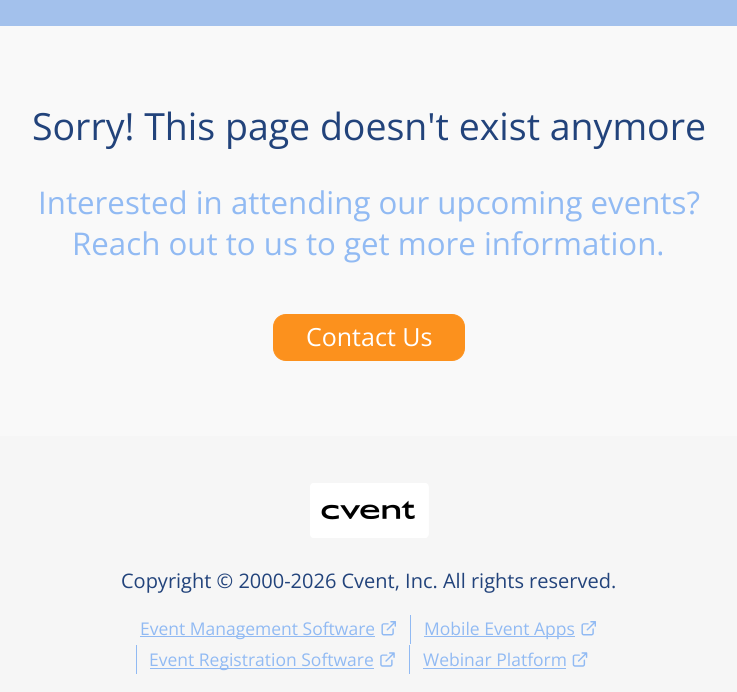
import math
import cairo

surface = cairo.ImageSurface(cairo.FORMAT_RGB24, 737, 692)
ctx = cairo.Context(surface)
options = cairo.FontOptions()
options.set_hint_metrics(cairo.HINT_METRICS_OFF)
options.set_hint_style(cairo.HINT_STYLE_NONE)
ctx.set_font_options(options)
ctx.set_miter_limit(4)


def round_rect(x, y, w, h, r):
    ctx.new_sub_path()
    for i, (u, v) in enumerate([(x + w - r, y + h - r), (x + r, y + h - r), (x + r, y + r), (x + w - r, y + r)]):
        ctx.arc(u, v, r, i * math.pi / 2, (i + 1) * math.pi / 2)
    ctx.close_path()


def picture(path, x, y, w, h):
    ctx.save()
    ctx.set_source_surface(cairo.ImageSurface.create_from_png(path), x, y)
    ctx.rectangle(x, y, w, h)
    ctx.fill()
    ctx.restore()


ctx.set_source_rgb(0.639, 0.757, 0.925)
ctx.paint()
ctx.set_source_rgb(0.976, 0.976, 0.976)
ctx.rectangle(0, 26, 737, 410)
ctx.fill()
ctx.select_font_face("Open Sans")
ctx.set_font_size(37.5)
ctx.set_source_rgb(0.133, 0.263, 0.482)
ctx.move_to(32, 140)
ctx.show_text("Sorry! This page doesn't exist anymore")
ctx.set_font_size(31.25)
ctx.set_source_rgb(0.569, 0.729, 0.953)
ctx.move_to(38, 214)
ctx.show_text("Interested in attending our upcoming events?")
ctx.move_to(72, 255)
ctx.show_text("Reach out to us to get more information.")
ctx.set_source_rgb(0.988, 0.569, 0.114)
round_rect(273.5, 314.5, 191, 46, 12.5)
ctx.fill_preserve()
ctx.set_line_width(1)
ctx.stroke()
ctx.set_font_size(25)
ctx.set_source_rgb(1, 1, 1)
ctx.move_to(306, 346)
ctx.show_text("Contact Us")
ctx.set_source_rgb(0.961, 0.961, 0.961)
ctx.rectangle(0, 436, 737, 256)
ctx.fill()
picture("img1.png", 310, 483, 119, 55)
ctx.set_font_size(20)
ctx.set_source_rgb(0.133, 0.263, 0.482)
ctx.move_to(121, 588)
ctx.show_text("Copyright © 2000-2026 Cvent, Inc. All rights reserved.")
ctx.set_source_rgb(0.569, 0.729, 0.953)
ctx.rectangle(140, 636, 235, 1)
ctx.fill()
ctx.set_font_size(17.5)
ctx.move_to(140, 635)
ctx.show_text("Event Management Software")
picture("img2.png", 381, 621, 15, 15)
ctx.rectangle(410, 615, 1, 29)
ctx.fill()
ctx.rectangle(424, 636, 151, 1)
ctx.fill()
ctx.move_to(424, 635)
ctx.show_text("Mobile Event Apps")
picture("img2.png", 581, 621, 15, 15)
ctx.rectangle(136, 645, 1, 29)
ctx.fill()
ctx.rectangle(150, 668, 224, 1)
ctx.fill()
ctx.move_to(149, 666)
ctx.show_text("Event Registration Software")
picture("img3.png", 380, 652, 15, 15)
ctx.rectangle(409, 645, 1, 29)
ctx.fill()
ctx.move_to(423, 666)
ctx.show_text("Webinar Platform")
ctx.rectangle(423, 668, 143, 1)
ctx.fill()
picture("img4.png", 572, 652, 16, 15)
surface.write_to_png("page.png")
